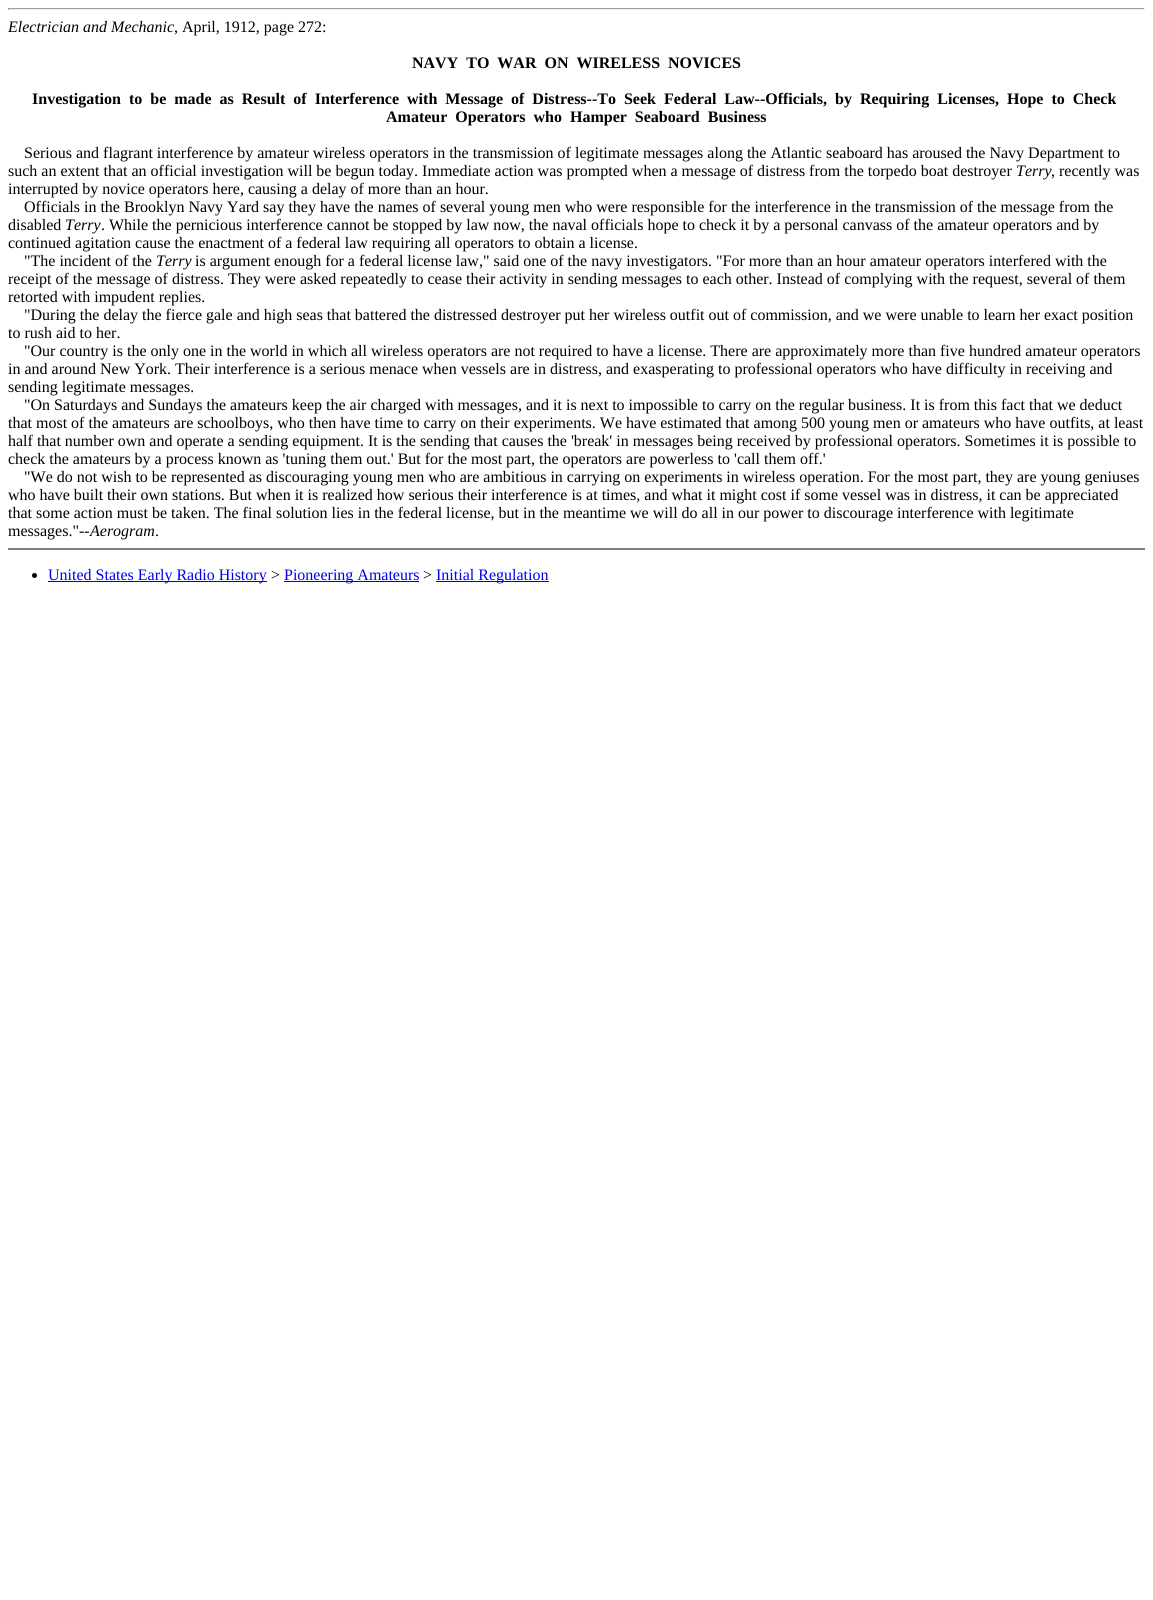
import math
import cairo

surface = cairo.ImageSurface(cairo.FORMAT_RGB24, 1153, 1600)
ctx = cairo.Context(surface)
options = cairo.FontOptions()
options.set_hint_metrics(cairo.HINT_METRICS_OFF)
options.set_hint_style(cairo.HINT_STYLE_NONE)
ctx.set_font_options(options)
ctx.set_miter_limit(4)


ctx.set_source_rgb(1, 1, 1)
ctx.paint()
ctx.set_source_rgb(0.624, 0.624, 0.624)
ctx.rectangle(8, 8, 1137, 1)
ctx.fill()
ctx.set_source_rgb(0.933, 0.933, 0.933)
ctx.rectangle(1144, 8, 1, 2)
ctx.fill()
ctx.rectangle(8, 9, 1137, 1)
ctx.fill()
ctx.set_source_rgb(0.624, 0.624, 0.624)
ctx.rectangle(8, 8, 1, 2)
ctx.fill()
ctx.select_font_face("Liberation Serif", cairo.FONT_SLANT_ITALIC)
ctx.set_font_size(16)
ctx.set_source_rgb(0, 0, 0)
ctx.move_to(8, 32)
ctx.show_text("Electrician and Mechanic")
ctx.select_font_face("Liberation Serif")
ctx.move_to(174, 32)
ctx.show_text(", April, 1912, page 272:")
ctx.select_font_face("Liberation Serif", cairo.FONT_SLANT_NORMAL, cairo.FONT_WEIGHT_BOLD)
ctx.move_to(412, 68)
ctx.show_text("NAVY  TO  WAR  ON  WIRELESS  NOVICES")
ctx.move_to(32, 104)
ctx.show_text("Investigation  to  be  made  as  Result  of  Interference  with  Message  of  Distress--To  Seek  Federal  Law--Officials,  by  Requiring  Licenses,  Hope  to  Check")
ctx.move_to(386, 122)
ctx.show_text("Amateur  Operators  who  Hamper  Seaboard  Business")
ctx.select_font_face("Liberation Serif")
ctx.move_to(24, 158)
ctx.show_text("Serious and flagrant interference by amateur wireless operators in the transmission of legitimate messages along the Atlantic seaboard has aroused the Navy Department to")
ctx.move_to(8, 176)
ctx.show_text("such an extent that an official investigation will be begun today. Immediate action was prompted when a message of distress from the torpedo boat destroyer")
ctx.select_font_face("Liberation Serif", cairo.FONT_SLANT_ITALIC)
ctx.move_to(1016, 176)
ctx.show_text("Terry")
ctx.select_font_face("Liberation Serif")
ctx.move_to(1051, 176)
ctx.show_text(", recently was")
ctx.move_to(8, 194)
ctx.show_text("interrupted by novice operators here, causing a delay of more than an hour.")
ctx.move_to(24, 212)
ctx.show_text("Officials in the Brooklyn Navy Yard say they have the names of several young men who were responsible for the interference in the transmission of the message from the")
ctx.move_to(8, 230)
ctx.show_text("disabled")
ctx.select_font_face("Liberation Serif", cairo.FONT_SLANT_ITALIC)
ctx.move_to(65, 230)
ctx.show_text("Terry")
ctx.select_font_face("Liberation Serif")
ctx.move_to(101, 230)
ctx.show_text(". While the pernicious interference cannot be stopped by law now, the naval officials hope to check it by a personal canvass of the amateur operators and by")
ctx.move_to(8, 248)
ctx.show_text("continued agitation cause the enactment of a federal law requiring all operators to obtain a license.")
ctx.move_to(24, 266)
ctx.show_text("\"The incident of the")
ctx.select_font_face("Liberation Serif", cairo.FONT_SLANT_ITALIC)
ctx.move_to(156, 266)
ctx.show_text("Terry")
ctx.select_font_face("Liberation Serif")
ctx.move_to(195, 266)
ctx.show_text("is argument enough for a federal license law,\" said one of the navy investigators. \"For more than an hour amateur operators interfered with the")
ctx.move_to(8, 284)
ctx.show_text("receipt of the message of distress. They were asked repeatedly to cease their activity in sending messages to each other. Instead of complying with the request, several of them")
ctx.move_to(8, 302)
ctx.show_text("retorted with impudent replies.")
ctx.move_to(24, 320)
ctx.show_text("\"During the delay the fierce gale and high seas that battered the distressed destroyer put her wireless outfit out of commission, and we were unable to learn her exact position")
ctx.move_to(8, 338)
ctx.show_text("to rush aid to her.")
ctx.move_to(24, 356)
ctx.show_text("\"Our country is the only one in the world in which all wireless operators are not required to have a license. There are approximately more than five hundred amateur operators")
ctx.move_to(8, 374)
ctx.show_text("in and around New York. Their interference is a serious menace when vessels are in distress, and exasperating to professional operators who have difficulty in receiving and")
ctx.move_to(8, 392)
ctx.show_text("sending legitimate messages.")
ctx.move_to(24, 410)
ctx.show_text("\"On Saturdays and Sundays the amateurs keep the air charged with messages, and it is next to impossible to carry on the regular business. It is from this fact that we deduct")
ctx.move_to(8, 428)
ctx.show_text("that most of the amateurs are schoolboys, who then have time to carry on their experiments. We have estimated that among 500 young men or amateurs who have outfits, at least")
ctx.move_to(8, 446)
ctx.show_text("half that number own and operate a sending equipment. It is the sending that causes the 'break' in messages being received by professional operators. Sometimes it is possible to")
ctx.move_to(8, 464)
ctx.show_text("check the amateurs by a process known as 'tuning them out.' But for the most part, the operators are powerless to 'call them off.'")
ctx.move_to(24, 482)
ctx.show_text("\"We do not wish to be represented as discouraging young men who are ambitious in carrying on experiments in wireless operation. For the most part, they are young geniuses")
ctx.move_to(8, 500)
ctx.show_text("who have built their own stations. But when it is realized how serious their interference is at times, and what it might cost if some vessel was in distress, it can be appreciated")
ctx.move_to(8, 518)
ctx.show_text("that some action must be taken. The final solution lies in the federal license, but in the meantime we will do all in our power to discourage interference with legitimate")
ctx.move_to(8, 536)
ctx.show_text("messages.\"--")
ctx.select_font_face("Liberation Serif", cairo.FONT_SLANT_ITALIC)
ctx.move_to(90, 536)
ctx.show_text("Aerogram")
ctx.select_font_face("Liberation Serif")
ctx.move_to(155, 536)
ctx.show_text(".")
ctx.set_source_rgb(0.502, 0.502, 0.502)
ctx.rectangle(8, 548, 1137, 2)
ctx.fill()
ctx.set_source_rgb(0, 0, 0)
ctx.arc(34.5, 575.5, 2.5, 0, 2 * math.pi)
ctx.fill()
ctx.set_source_rgb(0, 0, 0.933)
ctx.rectangle(48, 581, 219, 1)
ctx.fill()
ctx.move_to(48, 580)
ctx.show_text("United States Early Radio History")
ctx.set_source_rgb(0, 0, 0)
ctx.move_to(271, 580)
ctx.show_text(">")
ctx.set_source_rgb(0, 0, 0.933)
ctx.rectangle(284, 581, 135, 1)
ctx.fill()
ctx.move_to(284, 580)
ctx.show_text("Pioneering Amateurs")
ctx.set_source_rgb(0, 0, 0)
ctx.move_to(423, 580)
ctx.show_text(">")
ctx.set_source_rgb(0, 0, 0.933)
ctx.rectangle(436, 581, 113, 1)
ctx.fill()
ctx.move_to(436, 580)
ctx.show_text("Initial Regulation")
surface.write_to_png("page.png")
